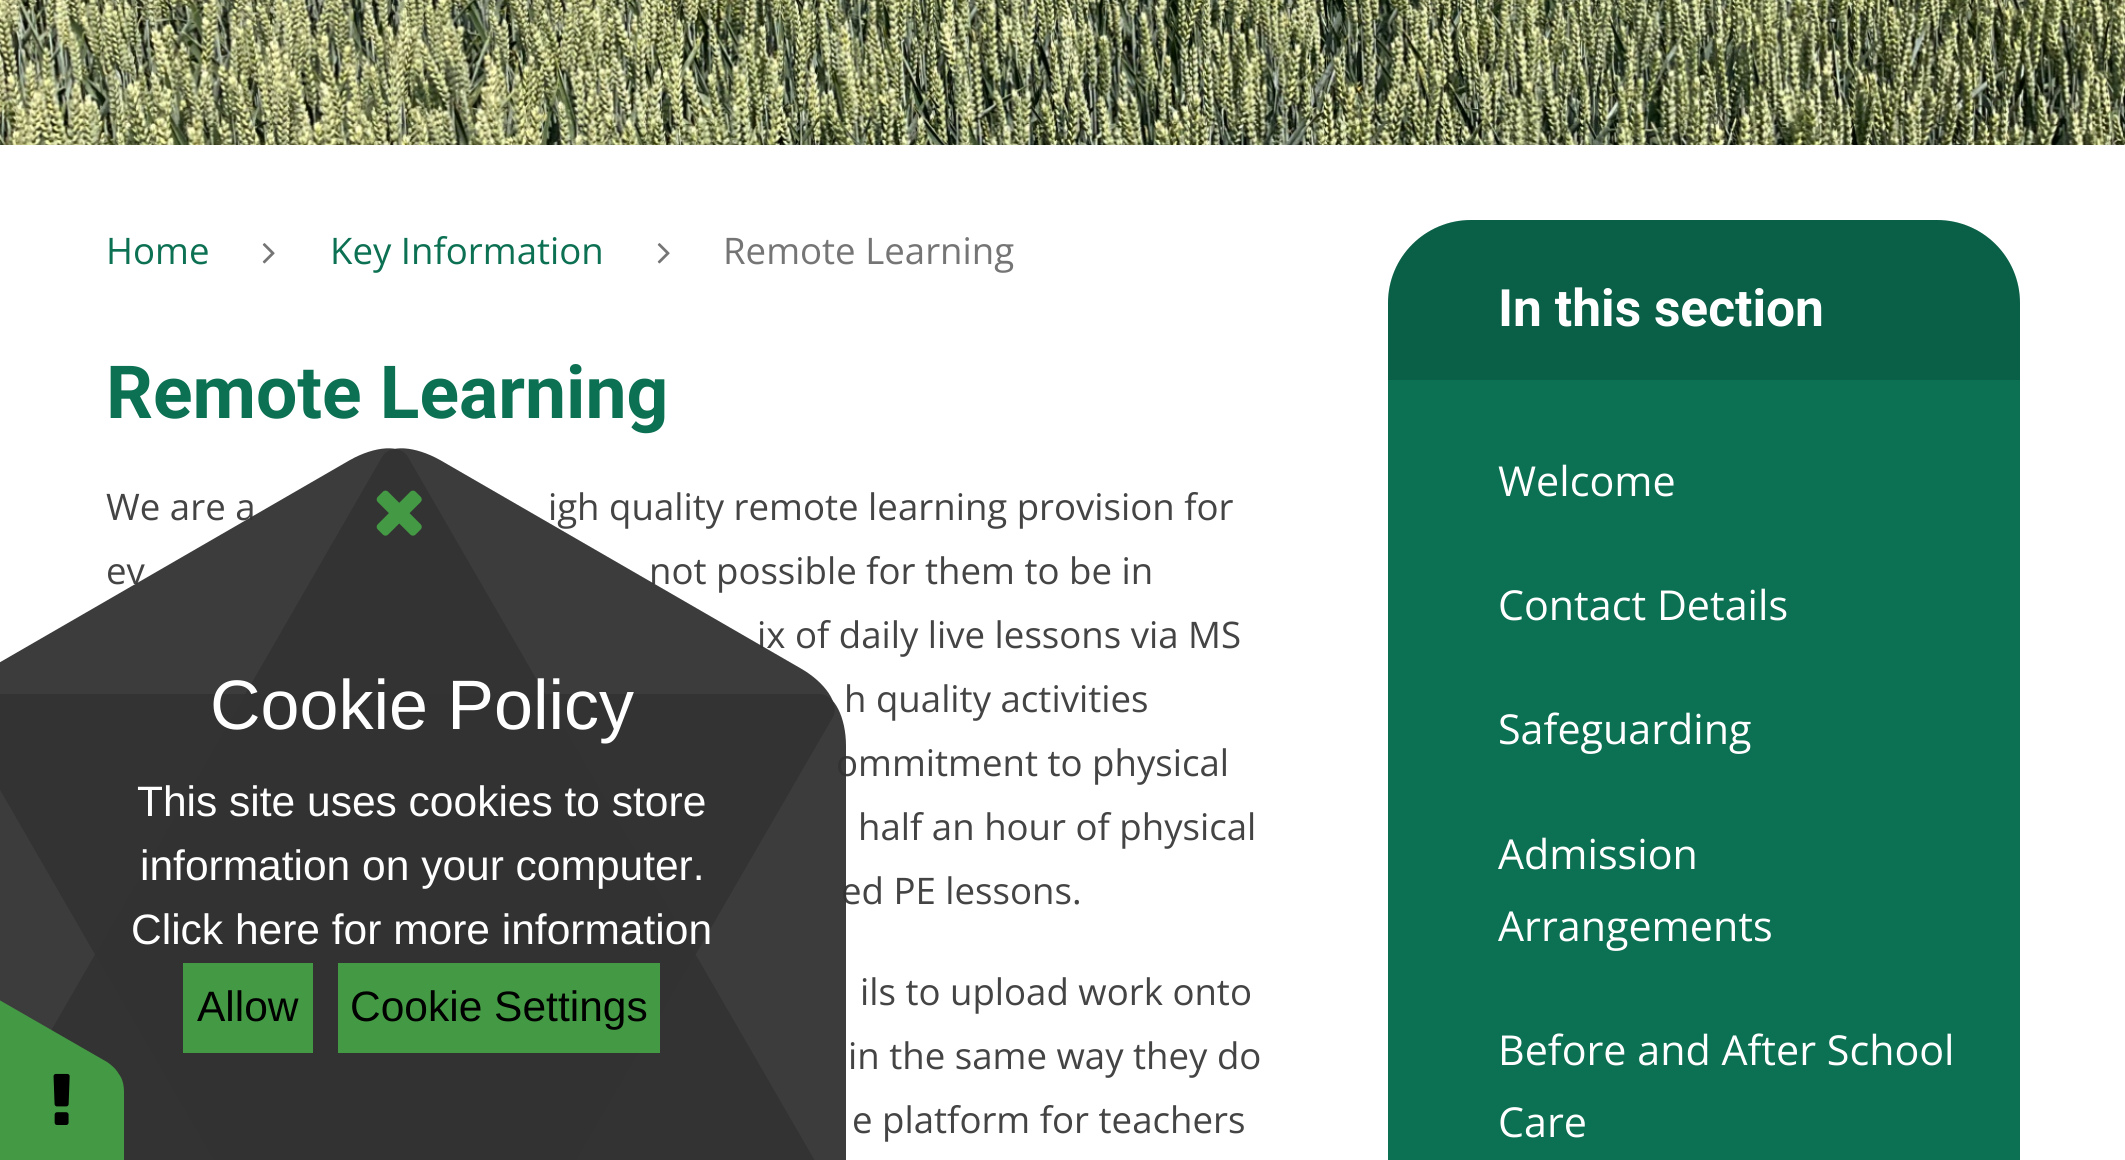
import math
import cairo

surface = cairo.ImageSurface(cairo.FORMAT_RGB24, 2125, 1160)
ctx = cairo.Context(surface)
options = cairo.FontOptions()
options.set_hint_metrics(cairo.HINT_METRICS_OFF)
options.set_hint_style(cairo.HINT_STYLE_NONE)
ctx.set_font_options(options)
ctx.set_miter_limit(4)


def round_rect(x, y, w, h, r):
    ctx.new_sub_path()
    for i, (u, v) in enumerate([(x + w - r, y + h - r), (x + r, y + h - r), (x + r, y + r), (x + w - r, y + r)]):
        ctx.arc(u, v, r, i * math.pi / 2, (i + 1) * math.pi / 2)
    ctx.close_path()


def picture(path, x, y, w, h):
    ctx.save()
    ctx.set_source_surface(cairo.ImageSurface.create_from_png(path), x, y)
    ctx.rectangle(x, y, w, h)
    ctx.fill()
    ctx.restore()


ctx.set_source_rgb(1, 1, 1)
ctx.paint()
picture("img1.png", 0, 0, 2125, 145)
ctx.select_font_face("Open Sans")
ctx.set_font_size(36.6)
ctx.set_source_rgb(0.047, 0.439, 0.325)
ctx.move_to(106, 264)
ctx.show_text("Home")
picture("img2.png", 262, 243, 13, 21)
ctx.move_to(330, 264)
ctx.show_text("Key Information")
picture("img2.png", 657, 243, 13, 21)
ctx.set_source_rgb(0.459, 0.459, 0.459)
ctx.move_to(723, 264)
ctx.show_text("Remote Learning")
ctx.select_font_face("Roboto", cairo.FONT_SLANT_NORMAL, cairo.FONT_WEIGHT_BOLD)
ctx.set_font_size(73.25)
ctx.set_source_rgb(0.047, 0.439, 0.325)
ctx.move_to(106, 418)
ctx.show_text("Remote Learning")
ctx.select_font_face("Open Sans")
ctx.set_font_size(36.6)
ctx.set_source_rgb(0.267, 0.267, 0.267)
ctx.move_to(106, 520)
ctx.show_text("We are a")
ctx.move_to(548, 520)
ctx.show_text("igh quality remote learning provision for")
ctx.move_to(106, 584)
ctx.show_text("ev")
ctx.move_to(649, 584)
ctx.show_text("not possible for them to be in")
ctx.move_to(757, 648)
ctx.show_text("ix of daily live lessons via MS")
ctx.move_to(844, 712)
ctx.show_text("h quality activities")
ctx.move_to(836, 776)
ctx.show_text("ommitment to physical")
ctx.move_to(858, 840)
ctx.show_text("half an hour of physical")
ctx.move_to(841, 904)
ctx.show_text("ed PE lessons.")
ctx.move_to(860, 1005)
ctx.show_text("ils to upload work onto")
ctx.move_to(848, 1069)
ctx.show_text("in the same way they do")
ctx.move_to(852, 1133)
ctx.show_text("e platform for teachers")
ctx.set_source_rgb(0.047, 0.439, 0.325)
round_rect(1388, 220, 632, 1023, 83)
ctx.fill()
ctx.set_source_rgba(0, 0, 0, 0.15)
ctx.new_path()
ctx.move_to(1471, 220)
ctx.line_to(1937, 220)
ctx.curve_to(1983, 220, 2020, 257, 2020, 303)
ctx.line_to(2020, 380)
ctx.line_to(1388, 380)
ctx.line_to(1388, 303)
ctx.curve_to(1388, 257, 1425, 220, 1471, 220)
ctx.close_path()
ctx.fill()
ctx.select_font_face("Roboto", cairo.FONT_SLANT_NORMAL, cairo.FONT_WEIGHT_BOLD)
ctx.set_font_size(51.5)
ctx.set_source_rgb(1, 1, 1)
ctx.move_to(1498, 326)
ctx.show_text("In this section")
ctx.select_font_face("Open Sans")
ctx.set_font_size(41.25)
ctx.move_to(1498, 496)
ctx.show_text("Welcome")
ctx.move_to(1498, 620)
ctx.show_text("Contact Details")
ctx.move_to(1498, 744)
ctx.show_text("Safeguarding")
ctx.move_to(1498, 869)
ctx.show_text("Admission")
ctx.move_to(1498, 941)
ctx.show_text("Arrangements")
ctx.move_to(1498, 1065)
ctx.show_text("Before and After School")
ctx.move_to(1498, 1137)
ctx.show_text("Care")
ctx.set_source_rgba(0.2, 0.2, 0.2, 0.95)
ctx.new_path()
ctx.move_to(846, 746)
ctx.line_to(846, 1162)
ctx.curve_to(846, 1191, 834, 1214, 820, 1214)
ctx.line_to(-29, 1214)
ctx.curve_to(-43, 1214, -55, 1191, -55, 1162)
ctx.line_to(-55, 746)
ctx.curve_to(-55, 717, -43, 694, -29, 694)
ctx.line_to(820, 694)
ctx.curve_to(834, 694, 846, 717, 846, 746)
ctx.close_path()
ctx.fill()
ctx.new_path()
ctx.move_to(800, 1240)
ctx.line_to(440, 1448)
ctx.curve_to(415, 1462, 389, 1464, 382, 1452)
ctx.line_to(-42, 717)
ctx.curve_to(-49, 704, -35, 682, -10, 668)
ctx.line_to(350, 460)
ctx.curve_to(375, 446, 401, 444, 408, 457)
ctx.line_to(833, 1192)
ctx.curve_to(840, 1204, 825, 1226, 800, 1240)
ctx.close_path()
ctx.fill()
ctx.new_path()
ctx.move_to(440, 460)
ctx.line_to(800, 668)
ctx.curve_to(825, 682, 840, 704, 833, 717)
ctx.line_to(408, 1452)
ctx.curve_to(401, 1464, 375, 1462, 350, 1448)
ctx.line_to(-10, 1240)
ctx.curve_to(-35, 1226, -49, 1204, -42, 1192)
ctx.line_to(382, 457)
ctx.curve_to(389, 444, 415, 446, 440, 460)
ctx.close_path()
ctx.fill()
picture("img3.png", 376, 490, 46, 46)
ctx.select_font_face("Liberation Sans")
ctx.set_font_size(70)
ctx.set_source_rgb(1, 1, 1)
ctx.move_to(210, 729)
ctx.show_text("Cookie Policy")
ctx.set_font_size(42.5)
ctx.move_to(137, 816)
ctx.show_text("This site uses cookies to store")
ctx.move_to(140, 880)
ctx.show_text("information on your computer.")
ctx.move_to(131, 944)
ctx.show_text("Click here for more information")
ctx.set_source_rgb(0.267, 0.604, 0.267)
ctx.rectangle(183, 963, 130, 90)
ctx.fill()
ctx.set_source_rgb(0, 0, 0)
ctx.move_to(197, 1021)
ctx.show_text("Allow")
ctx.set_source_rgb(0.267, 0.604, 0.267)
ctx.rectangle(338, 963, 322, 90)
ctx.fill()
ctx.set_source_rgb(0, 0, 0)
ctx.move_to(350, 1021)
ctx.show_text("Cookie Settings")
ctx.set_source_rgb(0.267, 0.604, 0.267)
ctx.new_path()
ctx.move_to(124, 1092)
ctx.line_to(124, 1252)
ctx.curve_to(124, 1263, 120, 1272, 114, 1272)
ctx.line_to(-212, 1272)
ctx.curve_to(-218, 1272, -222, 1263, -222, 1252)
ctx.line_to(-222, 1092)
ctx.curve_to(-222, 1081, -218, 1072, -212, 1072)
ctx.line_to(114, 1072)
ctx.curve_to(120, 1072, 124, 1081, 124, 1092)
ctx.close_path()
ctx.fill()
ctx.new_path()
ctx.move_to(-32, 982)
ctx.line_to(107, 1062)
ctx.curve_to(116, 1068, 122, 1076, 119, 1081)
ctx.line_to(-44, 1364)
ctx.curve_to(-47, 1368, -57, 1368, -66, 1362)
ctx.line_to(-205, 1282)
ctx.curve_to(-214, 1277, -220, 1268, -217, 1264)
ctx.line_to(-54, 981)
ctx.curve_to(-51, 976, -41, 977, -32, 982)
ctx.close_path()
ctx.fill()
picture("img4.png", 53, 1073, 17, 52)
surface.write_to_png("page.png")
